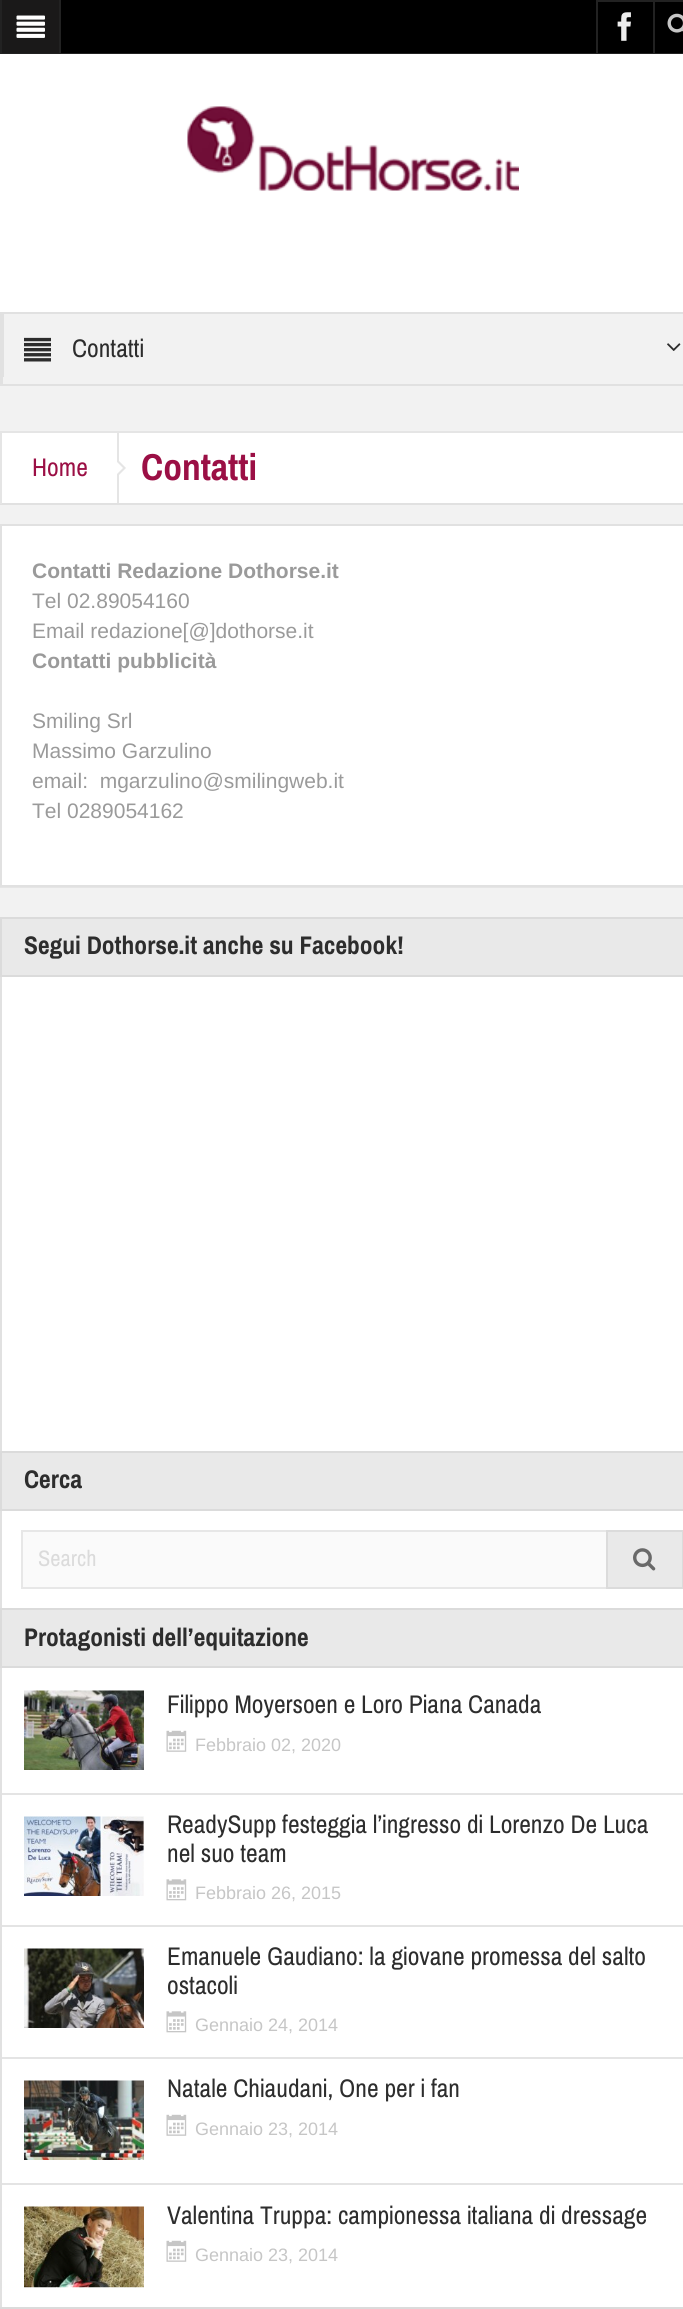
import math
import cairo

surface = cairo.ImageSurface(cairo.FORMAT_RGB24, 683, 2309)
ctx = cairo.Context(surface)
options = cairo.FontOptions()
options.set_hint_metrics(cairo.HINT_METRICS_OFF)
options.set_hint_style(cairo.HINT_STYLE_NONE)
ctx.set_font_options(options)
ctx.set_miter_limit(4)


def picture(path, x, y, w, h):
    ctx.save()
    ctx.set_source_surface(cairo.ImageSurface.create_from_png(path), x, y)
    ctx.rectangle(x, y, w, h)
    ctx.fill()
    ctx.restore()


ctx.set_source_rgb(0.949, 0.949, 0.949)
ctx.paint()
ctx.set_source_rgb(0, 0, 0)
ctx.rectangle(61, 0, 622, 53)
ctx.fill()
ctx.set_source_rgb(0.133, 0.133, 0.133)
ctx.rectangle(0, 53, 683, 1)
ctx.fill()
ctx.set_source_rgb(0.102, 0.098, 0.098)
ctx.rectangle(2, 0, 57, 53)
ctx.fill()
ctx.set_source_rgb(0.133, 0.133, 0.133)
ctx.rectangle(59, 0, 2, 53)
ctx.fill()
ctx.rectangle(0, 0, 2, 53)
ctx.fill()
picture("img1.png", 16, 15, 29, 23)
ctx.rectangle(596, 0, 87, 2)
ctx.fill()
ctx.rectangle(596, 0, 2, 53)
ctx.fill()
picture("img2.png", 617, 12, 14, 29)
ctx.rectangle(653, 0, 2, 53)
ctx.fill()
picture("img3.png", 667, 13, 16, 20)
ctx.set_source_rgb(1, 1, 1)
ctx.rectangle(0, 54, 683, 258)
ctx.fill()
picture("img4.png", 187, 106, 332, 85)
ctx.rectangle(1, 313, 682, 72)
ctx.set_source_rgb(0.882, 0.882, 0.882)
ctx.stroke()
ctx.set_source_rgb(0.949, 0.949, 0.949)
ctx.rectangle(682, 314, 1, 70)
ctx.fill()
ctx.set_source_rgb(0.882, 0.882, 0.882)
ctx.rectangle(2, 314, 2, 70)
ctx.fill()
picture("img5.png", 24, 337, 27, 25)
ctx.select_font_face("Archivo Narrow")
ctx.set_font_size(25.5)
ctx.set_source_rgb(0.176, 0.176, 0.176)
ctx.move_to(72, 357)
ctx.show_text("Contatti")
ctx.set_source_rgb(0.949, 0.949, 0.949)
ctx.rectangle(3, 377, 1, 7)
ctx.fill()
picture("img6.png", 667, 343, 14, 8)
ctx.set_source_rgb(1, 1, 1)
ctx.rectangle(2, 433, 681, 70)
ctx.fill()
ctx.set_source_rgb(0.898, 0.898, 0.898)
ctx.rectangle(0, 431, 683, 2)
ctx.fill()
ctx.set_source_rgb(0.882, 0.882, 0.882)
ctx.rectangle(0, 503, 683, 2)
ctx.fill()
ctx.set_source_rgb(0.898, 0.898, 0.898)
ctx.rectangle(0, 431, 2, 73)
ctx.fill()
ctx.rectangle(117, 432, 2, 71)
ctx.fill()
ctx.set_source_rgb(0.608, 0.059, 0.271)
ctx.move_to(32, 476)
ctx.show_text("Home")
ctx.set_source_rgb(0.898, 0.898, 0.898)
ctx.new_path()
ctx.move_to(117, 477)
ctx.line_to(117, 459)
ctx.line_to(126, 468)
ctx.close_path()
ctx.fill()
ctx.set_source_rgb(1, 1, 1)
ctx.new_path()
ctx.move_to(117, 474)
ctx.line_to(117, 462)
ctx.line_to(123, 468)
ctx.close_path()
ctx.fill()
ctx.select_font_face("Archivo Narrow", cairo.FONT_SLANT_NORMAL, cairo.FONT_WEIGHT_BOLD)
ctx.set_font_size(37.5)
ctx.set_source_rgb(0.608, 0.059, 0.271)
ctx.move_to(141, 480)
ctx.show_text("Contatti")
ctx.set_source_rgb(0.898, 0.898, 0.898)
ctx.rectangle(0, 887, 683, 1)
ctx.fill()
ctx.set_source_rgb(1, 1, 1)
ctx.rectangle(1, 525, 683, 361)
ctx.fill_preserve()
ctx.set_source_rgb(0.882, 0.882, 0.882)
ctx.stroke()
ctx.select_font_face("Liberation Sans", cairo.FONT_SLANT_NORMAL, cairo.FONT_WEIGHT_BOLD)
ctx.set_font_size(21)
ctx.set_source_rgb(0.604, 0.604, 0.604)
ctx.move_to(32, 578)
ctx.show_text("Contatti Redazione Dothorse.it")
ctx.select_font_face("Liberation Sans")
ctx.move_to(32, 608)
ctx.show_text("Tel 02.89054160")
ctx.move_to(32, 638)
ctx.show_text("Email redazione[@]dothorse.it")
ctx.select_font_face("Liberation Sans", cairo.FONT_SLANT_NORMAL, cairo.FONT_WEIGHT_BOLD)
ctx.move_to(32, 668)
ctx.show_text("Contatti pubblicità")
ctx.select_font_face("Liberation Sans")
ctx.move_to(32, 728)
ctx.show_text("Smiling Srl")
ctx.move_to(32, 758)
ctx.show_text("Massimo Garzulino")
ctx.move_to(32, 788)
ctx.show_text("email:  mgarzulino@smilingweb.it")
ctx.move_to(32, 818)
ctx.show_text("Tel 0289054162")
ctx.set_source_rgb(1, 1, 1)
ctx.rectangle(2, 977, 681, 1330)
ctx.fill()
ctx.rectangle(1, 918, 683, 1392)
ctx.set_source_rgb(0.882, 0.882, 0.882)
ctx.stroke()
ctx.set_source_rgb(0.914, 0.914, 0.914)
ctx.rectangle(1, 918, 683, 58)
ctx.fill_preserve()
ctx.set_source_rgb(0.859, 0.859, 0.859)
ctx.stroke()
ctx.select_font_face("Archivo Narrow", cairo.FONT_SLANT_NORMAL, cairo.FONT_WEIGHT_BOLD)
ctx.set_font_size(25.5)
ctx.set_source_rgb(0.176, 0.176, 0.176)
ctx.move_to(24, 954)
ctx.show_text("Segui Dothorse.it anche su Facebook!")
ctx.set_source_rgb(0.914, 0.914, 0.914)
ctx.rectangle(1, 1452, 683, 58)
ctx.fill_preserve()
ctx.set_source_rgb(0.859, 0.859, 0.859)
ctx.stroke()
ctx.set_source_rgb(0.176, 0.176, 0.176)
ctx.move_to(24, 1488)
ctx.show_text("Cerca")
ctx.set_source_rgb(0.98, 0.98, 0.98)
ctx.rectangle(23, 1532, 583, 55)
ctx.fill()
ctx.set_source_rgb(0.906, 0.906, 0.906)
ctx.rectangle(21, 1530, 585, 2)
ctx.fill()
ctx.rectangle(21, 1587, 585, 2)
ctx.fill()
ctx.rectangle(21, 1530, 2, 59)
ctx.fill()
ctx.select_font_face("Archivo Narrow")
ctx.set_font_size(22.5)
ctx.set_source_rgb(0.859, 0.859, 0.859)
ctx.move_to(38, 1566)
ctx.show_text("Search")
ctx.set_source_rgb(0.914, 0.914, 0.914)
ctx.rectangle(607, 1531, 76, 57)
ctx.fill_preserve()
ctx.set_source_rgb(0.859, 0.859, 0.859)
ctx.stroke()
picture("img7.png", 633, 1548, 23, 23)
ctx.set_source_rgb(0.914, 0.914, 0.914)
ctx.rectangle(1, 1609, 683, 58)
ctx.fill_preserve()
ctx.set_source_rgb(0.859, 0.859, 0.859)
ctx.stroke()
ctx.select_font_face("Archivo Narrow", cairo.FONT_SLANT_NORMAL, cairo.FONT_WEIGHT_BOLD)
ctx.set_font_size(25.5)
ctx.set_source_rgb(0.176, 0.176, 0.176)
ctx.move_to(24, 1646)
ctx.show_text("Protagonisti dell’equitazione")
ctx.set_source_rgb(0.894, 0.894, 0.894)
ctx.rectangle(2, 1793, 681, 2)
ctx.fill()
picture("img8.png", 24, 1690, 120, 80)
ctx.select_font_face("Archivo Narrow")
ctx.set_source_rgb(0.176, 0.176, 0.176)
ctx.move_to(167, 1713)
ctx.show_text("Filippo Moyersoen e Loro Piana Canada")
picture("img9.png", 166, 1730, 21, 22)
ctx.select_font_face("Liberation Sans")
ctx.set_font_size(18)
ctx.set_source_rgb(0.776, 0.776, 0.776)
ctx.move_to(195, 1751)
ctx.show_text("Febbraio 02, 2020")
ctx.set_source_rgb(0.894, 0.894, 0.894)
ctx.rectangle(2, 1925, 681, 2)
ctx.fill()
picture("img10.png", 24, 1816, 120, 80)
ctx.select_font_face("Archivo Narrow")
ctx.set_font_size(25.5)
ctx.set_source_rgb(0.176, 0.176, 0.176)
ctx.move_to(167, 1833)
ctx.show_text("ReadySupp festeggia l’ingresso di Lorenzo De Luca")
ctx.move_to(167, 1862)
ctx.show_text("nel suo team")
picture("img11.png", 166, 1879, 21, 22)
ctx.select_font_face("Liberation Sans")
ctx.set_font_size(18)
ctx.set_source_rgb(0.776, 0.776, 0.776)
ctx.move_to(195, 1899)
ctx.show_text("Febbraio 26, 2015")
ctx.set_source_rgb(0.894, 0.894, 0.894)
ctx.rectangle(2, 2057, 681, 2)
ctx.fill()
picture("img12.png", 24, 1948, 120, 80)
ctx.select_font_face("Archivo Narrow")
ctx.set_font_size(25.5)
ctx.set_source_rgb(0.176, 0.176, 0.176)
ctx.move_to(167, 1965)
ctx.show_text("Emanuele Gaudiano: la giovane promessa del salto")
ctx.move_to(167, 1994)
ctx.show_text("ostacoli")
picture("img11.png", 166, 2011, 21, 22)
ctx.select_font_face("Liberation Sans")
ctx.set_font_size(18)
ctx.set_source_rgb(0.776, 0.776, 0.776)
ctx.move_to(195, 2031)
ctx.show_text("Gennaio 24, 2014")
ctx.set_source_rgb(0.894, 0.894, 0.894)
ctx.rectangle(2, 2183, 681, 2)
ctx.fill()
picture("img13.png", 24, 2080, 120, 80)
ctx.select_font_face("Archivo Narrow")
ctx.set_font_size(25.5)
ctx.set_source_rgb(0.176, 0.176, 0.176)
ctx.move_to(167, 2097)
ctx.show_text("Natale Chiaudani, One per i fan")
picture("img9.png", 166, 2114, 21, 22)
ctx.select_font_face("Liberation Sans")
ctx.set_font_size(18)
ctx.set_source_rgb(0.776, 0.776, 0.776)
ctx.move_to(195, 2135)
ctx.show_text("Gennaio 23, 2014")
picture("img14.png", 24, 2206, 120, 82)
ctx.select_font_face("Archivo Narrow")
ctx.set_font_size(25.5)
ctx.set_source_rgb(0.176, 0.176, 0.176)
ctx.move_to(167, 2224)
ctx.show_text("Valentina Truppa: campionessa italiana di dressage")
picture("img9.png", 166, 2240, 21, 22)
ctx.select_font_face("Liberation Sans")
ctx.set_font_size(18)
ctx.set_source_rgb(0.776, 0.776, 0.776)
ctx.move_to(195, 2261)
ctx.show_text("Gennaio 23, 2014")
ctx.rectangle(1, 2308, 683, 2)
ctx.set_source_rgb(0.859, 0.859, 0.859)
ctx.stroke()
surface.write_to_png("page.png")
